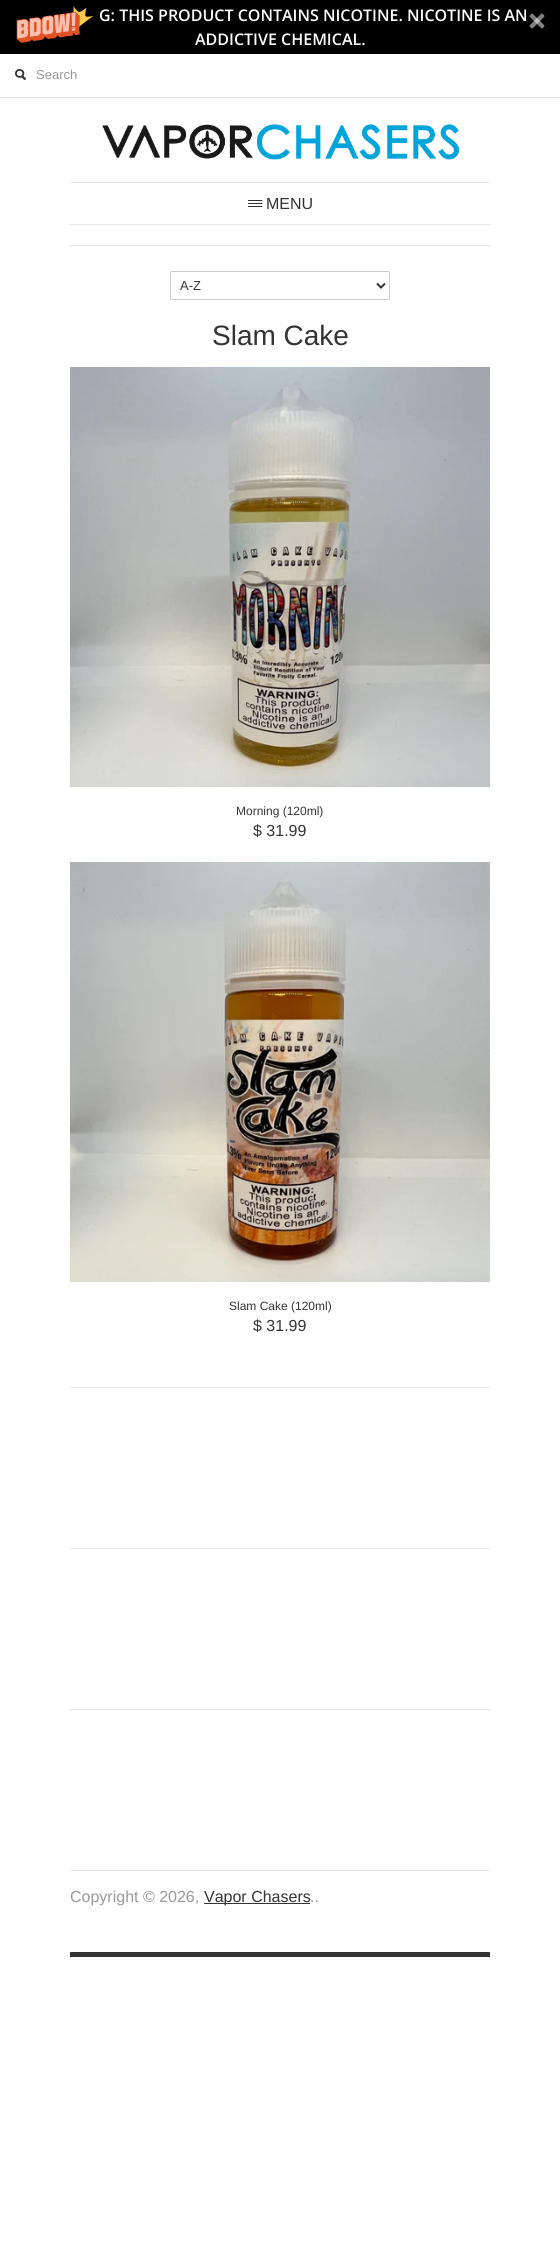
import math
import cairo

surface = cairo.ImageSurface(cairo.FORMAT_RGB24, 560, 2259)
ctx = cairo.Context(surface)
options = cairo.FontOptions()
options.set_hint_metrics(cairo.HINT_METRICS_OFF)
options.set_hint_style(cairo.HINT_STYLE_NONE)
ctx.set_font_options(options)
ctx.set_miter_limit(4)


def round_rect(x, y, w, h, r):
    ctx.new_sub_path()
    for i, (u, v) in enumerate([(x + w - r, y + h - r), (x + r, y + h - r), (x + r, y + r), (x + w - r, y + r)]):
        ctx.arc(u, v, r, i * math.pi / 2, (i + 1) * math.pi / 2)
    ctx.close_path()


def picture(path, x, y, w, h):
    ctx.save()
    ctx.set_source_surface(cairo.ImageSurface.create_from_png(path), x, y)
    ctx.rectangle(x, y, w, h)
    ctx.fill()
    ctx.restore()


ctx.set_source_rgb(1, 1, 1)
ctx.paint()
ctx.set_source_rgb(0, 0, 0)
ctx.rectangle(0, 0, 560, 54)
ctx.fill()
picture("img1.png", 16, 6, 78, 37)
ctx.select_font_face("Open Sans SemiBold")
ctx.set_font_size(16)
ctx.set_source_rgb(1, 1, 1)
ctx.move_to(99, 21)
ctx.show_text("G: THIS PRODUCT CONTAINS NICOTINE. NICOTINE IS AN")
ctx.move_to(195, 45)
ctx.show_text("ADDICTIVE CHEMICAL.")
picture("img2.png", 529, 13, 16, 16)
ctx.set_source_rgb(0.91, 0.91, 0.91)
ctx.rectangle(0, 97, 560, 1)
ctx.fill()
picture("img3.png", 15, 69, 11, 11)
ctx.select_font_face("Liberation Sans")
ctx.set_font_size(13)
ctx.set_source_rgb(0.6, 0.6, 0.6)
ctx.move_to(36, 79)
ctx.show_text("Search")
picture("img4.png", 102, 124, 358, 36)
ctx.set_source_rgb(0.91, 0.91, 0.91)
ctx.rectangle(70, 182, 420, 1)
ctx.fill()
ctx.rectangle(70, 224, 420, 1)
ctx.fill()
picture("img5.png", 248, 200, 15, 7)
ctx.set_font_size(16)
ctx.set_source_rgb(0.2, 0.2, 0.2)
ctx.move_to(266, 209)
ctx.show_text("MENU")
ctx.set_source_rgb(0.91, 0.91, 0.91)
ctx.rectangle(70, 245, 420, 1)
ctx.fill()
round_rect(170.5, 271.5, 219, 28, 1.5)
ctx.set_source_rgb(0.8, 0.8, 0.8)
ctx.set_line_width(1)
ctx.stroke()
ctx.new_path()
ctx.move_to(377, 283.5)
ctx.line_to(381, 287.5)
ctx.line_to(385, 283.5)
ctx.set_source_rgb(0.2, 0.2, 0.2)
ctx.set_line_width(2)
ctx.stroke()
ctx.set_font_size(13)
ctx.move_to(180, 290)
ctx.show_text("A-Z")
ctx.set_font_size(28)
ctx.move_to(212, 345)
ctx.show_text("Slam Cake")
picture("img6.png", 70, 367, 420, 420)
ctx.set_font_size(12)
ctx.move_to(236, 815)
ctx.show_text("Morning (120ml)")
ctx.set_font_size(16)
ctx.move_to(253, 836)
ctx.show_text("$ 31.99")
picture("img7.png", 70, 862, 420, 420)
ctx.set_font_size(12)
ctx.move_to(229, 1310)
ctx.show_text("Slam Cake (120ml)")
ctx.set_font_size(16)
ctx.move_to(253, 1331)
ctx.show_text("$ 31.99")
ctx.rectangle(70, 1952, 420, 5)
ctx.fill()
ctx.set_source_rgb(0.91, 0.91, 0.91)
ctx.rectangle(70, 1387, 420, 1)
ctx.fill()
ctx.rectangle(70, 1548, 420, 1)
ctx.fill()
ctx.rectangle(70, 1709, 420, 1)
ctx.fill()
ctx.rectangle(70, 1870, 420, 1)
ctx.fill()
ctx.set_source_rgb(0.6, 0.6, 0.6)
ctx.move_to(70, 1902)
ctx.show_text("Copyright © 2026,")
ctx.set_source_rgb(0.2, 0.2, 0.2)
ctx.rectangle(204, 1903, 106, 1)
ctx.fill()
ctx.move_to(204, 1902)
ctx.show_text("Vapor Chasers")
ctx.set_source_rgb(0.6, 0.6, 0.6)
ctx.move_to(310, 1902)
ctx.show_text("..")
surface.write_to_png("page.png")
